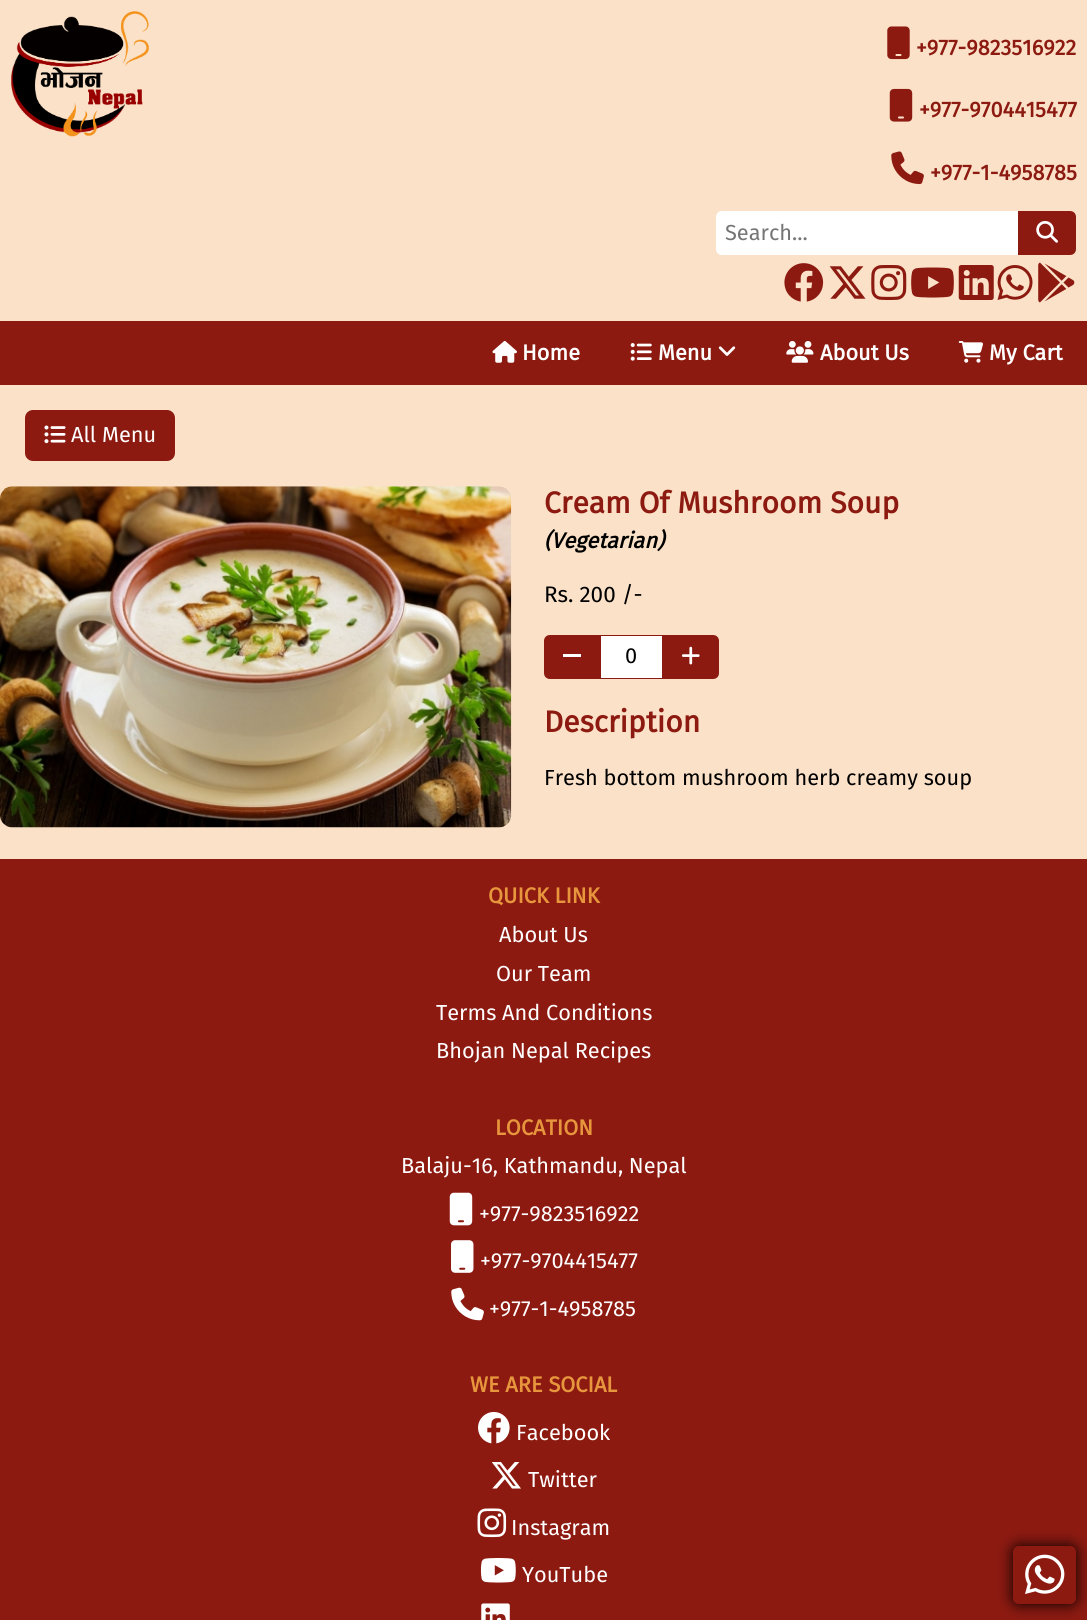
import math
import cairo

surface = cairo.ImageSurface(cairo.FORMAT_RGB24, 1087, 1620)
ctx = cairo.Context(surface)
options = cairo.FontOptions()
options.set_hint_metrics(cairo.HINT_METRICS_OFF)
options.set_hint_style(cairo.HINT_STYLE_NONE)
ctx.set_font_options(options)
ctx.set_miter_limit(4)


def round_rect(x, y, w, h, r):
    ctx.new_sub_path()
    for i, (u, v) in enumerate([(x + w - r, y + h - r), (x + r, y + h - r), (x + r, y + r), (x + w - r, y + r)]):
        ctx.arc(u, v, r, i * math.pi / 2, (i + 1) * math.pi / 2)
    ctx.close_path()


def shadow(x, y, w, h, r, blur, alpha):
    ctx.push_group_with_content(cairo.CONTENT_ALPHA)
    ctx.set_operator(cairo.OPERATOR_SOURCE)
    for i in range(15, -16, -2):
        e = blur * i / 6
        if min(w, h) + 2 * e > 0:
            ctx.set_source_rgba(0, 0, 0, alpha * math.erfc((i - 1) / 8.5) / 2)
            round_rect(x - e, y - e, w + 2 * e, h + 2 * e, max(0, min(r + e + blur * .6, min(w, h) / 2 + e)))
            ctx.fill()
    ctx.mask(ctx.pop_group())


def picture(path, x, y, w, h):
    ctx.save()
    ctx.set_source_surface(cairo.ImageSurface.create_from_png(path), x, y)
    ctx.rectangle(x, y, w, h)
    ctx.fill()
    ctx.restore()


ctx.set_source_rgb(0.98, 0.882, 0.78)
ctx.paint()
picture("img1.png", 11, 11, 138, 126)
picture("img2.png", 887, 26, 23, 34)
ctx.select_font_face("Fira Sans", cairo.FONT_SLANT_NORMAL, cairo.FONT_WEIGHT_BOLD)
ctx.set_font_size(21.75)
ctx.set_source_rgb(0.553, 0.102, 0.067)
ctx.move_to(916, 55)
ctx.show_text("+977-9823516922")
picture("img3.png", 889, 88, 24, 34)
ctx.move_to(919, 117)
ctx.show_text("+977-9704415477")
picture("img4.png", 891, 151, 33, 34)
ctx.move_to(930, 180)
ctx.show_text("+977-1-4958785")
ctx.set_source_rgb(1, 1, 1)
ctx.new_path()
ctx.move_to(722, 211)
ctx.line_to(1018, 211)
ctx.line_to(1018, 255)
ctx.line_to(722, 255)
ctx.curve_to(718.5, 255, 716, 252.5, 716, 249)
ctx.line_to(716, 217)
ctx.curve_to(716, 213.5, 718.5, 211, 722, 211)
ctx.close_path()
ctx.fill()
ctx.select_font_face("Fira Sans")
ctx.set_source_rgb(0.459, 0.459, 0.459)
ctx.move_to(725, 240)
ctx.show_text("Search...")
ctx.set_source_rgb(0.553, 0.102, 0.067)
ctx.new_path()
ctx.move_to(1018, 211)
ctx.line_to(1070, 211)
ctx.curve_to(1073.5, 211, 1076, 213.5, 1076, 217)
ctx.line_to(1076, 249)
ctx.curve_to(1076, 252.5, 1073.5, 255, 1070, 255)
ctx.line_to(1018, 255)
ctx.close_path()
ctx.fill()
picture("img5.png", 1036, 221, 22, 22)
picture("img6.png", 784, 263, 40, 39)
picture("img7.png", 829, 266, 37, 33)
picture("img8.png", 871, 265, 36, 35)
picture("img9.png", 911, 267, 43, 31)
picture("img10.png", 958, 265, 36, 35)
picture("img11.png", 997, 265, 36, 35)
picture("img12.png", 1038, 262, 37, 41)
ctx.rectangle(0, 321, 1087, 64)
ctx.fill()
picture("img13.png", 492, 341, 25, 22)
ctx.select_font_face("Fira Sans", cairo.FONT_SLANT_NORMAL, cairo.FONT_WEIGHT_BOLD)
ctx.set_source_rgb(1, 1, 1)
ctx.move_to(522, 360)
ctx.show_text("Home")
picture("img14.png", 630, 343, 22, 18)
ctx.move_to(658, 360)
ctx.show_text("Menu")
picture("img15.png", 718, 346, 18, 10)
picture("img16.png", 786, 341, 28, 22)
ctx.move_to(820, 360)
ctx.show_text("About Us")
picture("img17.png", 958, 341, 25, 22)
ctx.move_to(989, 360)
ctx.show_text("My Cart")
ctx.set_source_rgb(0.553, 0.102, 0.067)
round_rect(25, 410, 150, 51, 8)
ctx.fill()
picture("img18.png", 44, 425, 22, 19)
ctx.select_font_face("Fira Sans")
ctx.set_source_rgb(1, 1, 1)
ctx.move_to(71, 442)
ctx.show_text("All Menu")
picture("img19.png", 0, 486, 512, 342)
ctx.select_font_face("Fira Sans", cairo.FONT_SLANT_NORMAL, cairo.FONT_WEIGHT_BOLD)
ctx.set_font_size(30)
ctx.set_source_rgb(0.553, 0.102, 0.067)
ctx.move_to(544, 513)
ctx.show_text("Cream Of Mushroom Soup")
ctx.select_font_face("Fira Sans", cairo.FONT_SLANT_ITALIC, cairo.FONT_WEIGHT_BOLD)
ctx.set_font_size(21.75)
ctx.set_source_rgb(0, 0, 0)
ctx.move_to(544, 548)
ctx.show_text("(Vegetarian)")
ctx.select_font_face("Fira Sans")
ctx.set_font_size(22.5)
ctx.move_to(544, 602)
ctx.show_text("Rs. 200 /-")
ctx.set_source_rgb(0.553, 0.102, 0.067)
ctx.new_path()
ctx.move_to(550, 635)
ctx.line_to(600, 635)
ctx.line_to(600, 679)
ctx.line_to(550, 679)
ctx.curve_to(546.5, 679, 544, 676.5, 544, 673)
ctx.line_to(544, 641)
ctx.curve_to(544, 637.5, 546.5, 635, 550, 635)
ctx.close_path()
ctx.fill()
ctx.set_source_rgb(1, 1, 1)
ctx.rectangle(563, 654, 18, 3)
ctx.fill()
ctx.rectangle(600.5, 635.5, 62, 43)
ctx.fill_preserve()
ctx.set_source_rgb(0.553, 0.102, 0.067)
ctx.set_line_width(1)
ctx.stroke()
ctx.set_font_size(21.75)
ctx.set_source_rgb(0, 0, 0)
ctx.move_to(625, 663)
ctx.show_text("0")
ctx.set_source_rgb(0.553, 0.102, 0.067)
ctx.new_path()
ctx.move_to(663, 635)
ctx.line_to(713, 635)
ctx.curve_to(716.5, 635, 719, 637.5, 719, 641)
ctx.line_to(719, 673)
ctx.curve_to(719, 676.5, 716.5, 679, 713, 679)
ctx.line_to(663, 679)
ctx.close_path()
ctx.fill()
picture("img20.png", 681, 646, 19, 19)
ctx.select_font_face("Fira Sans", cairo.FONT_SLANT_NORMAL, cairo.FONT_WEIGHT_BOLD)
ctx.set_font_size(30)
ctx.move_to(544, 732)
ctx.show_text("Description")
ctx.select_font_face("Fira Sans")
ctx.set_font_size(21.75)
ctx.set_source_rgb(0, 0, 0)
ctx.move_to(544, 785)
ctx.show_text("Fresh bottom mushroom herb creamy soup")
ctx.set_source_rgb(0.553, 0.102, 0.067)
ctx.rectangle(0, 859, 1087, 761)
ctx.fill()
ctx.select_font_face("Fira Sans", cairo.FONT_SLANT_NORMAL, cairo.FONT_WEIGHT_BOLD)
ctx.set_source_rgb(0.906, 0.588, 0.239)
ctx.move_to(488, 903)
ctx.show_text("QUICK LINK")
ctx.select_font_face("Fira Sans")
ctx.set_source_rgb(1, 1, 1)
ctx.move_to(499, 942)
ctx.show_text("About Us")
ctx.move_to(496, 981)
ctx.show_text("Our Team")
ctx.move_to(436, 1020)
ctx.show_text("Terms And Conditions")
ctx.move_to(436, 1058)
ctx.show_text("Bhojan Nepal Recipes")
ctx.select_font_face("Fira Sans", cairo.FONT_SLANT_NORMAL, cairo.FONT_WEIGHT_BOLD)
ctx.set_source_rgb(0.906, 0.588, 0.239)
ctx.move_to(495, 1135)
ctx.show_text("LOCATION")
ctx.select_font_face("Fira Sans")
ctx.set_source_rgb(1, 1, 1)
ctx.move_to(401, 1173)
ctx.show_text("Balaju-16, Kathmandu, Nepal")
picture("img21.png", 449, 1192, 24, 34)
ctx.move_to(479, 1221)
ctx.show_text("+977-9823516922")
picture("img22.png", 451, 1240, 23, 33)
ctx.move_to(480, 1268)
ctx.show_text("+977-9704415477")
picture("img23.png", 451, 1287, 33, 34)
ctx.move_to(489, 1316)
ctx.show_text("+977-1-4958785")
ctx.select_font_face("Fira Sans", cairo.FONT_SLANT_NORMAL, cairo.FONT_WEIGHT_BOLD)
ctx.set_source_rgb(0.906, 0.588, 0.239)
ctx.move_to(470, 1392)
ctx.show_text("WE ARE SOCIAL")
picture("img24.png", 478, 1412, 32, 32)
ctx.select_font_face("Fira Sans")
ctx.set_source_rgb(1, 1, 1)
ctx.move_to(516, 1440)
ctx.show_text("Facebook")
picture("img25.png", 491, 1462, 30, 27)
ctx.move_to(528, 1487)
ctx.show_text("Twitter")
picture("img26.png", 477, 1508, 30, 30)
ctx.move_to(511, 1535)
ctx.show_text("Instagram")
picture("img27.png", 480, 1558, 36, 25)
ctx.move_to(522, 1582)
ctx.show_text("YouTube")
picture("img28.png", 481, 1603, 29, 17)
ctx.set_source_rgb(0, 0, 0)
shadow(1013, 1546, 63, 58, 6, 7.5, 1)
ctx.set_source_rgb(0.553, 0.102, 0.067)
round_rect(1013, 1546, 63, 58, 6)
ctx.fill()
picture("img29.png", 1025, 1554, 40, 40)
surface.write_to_png("page.png")
